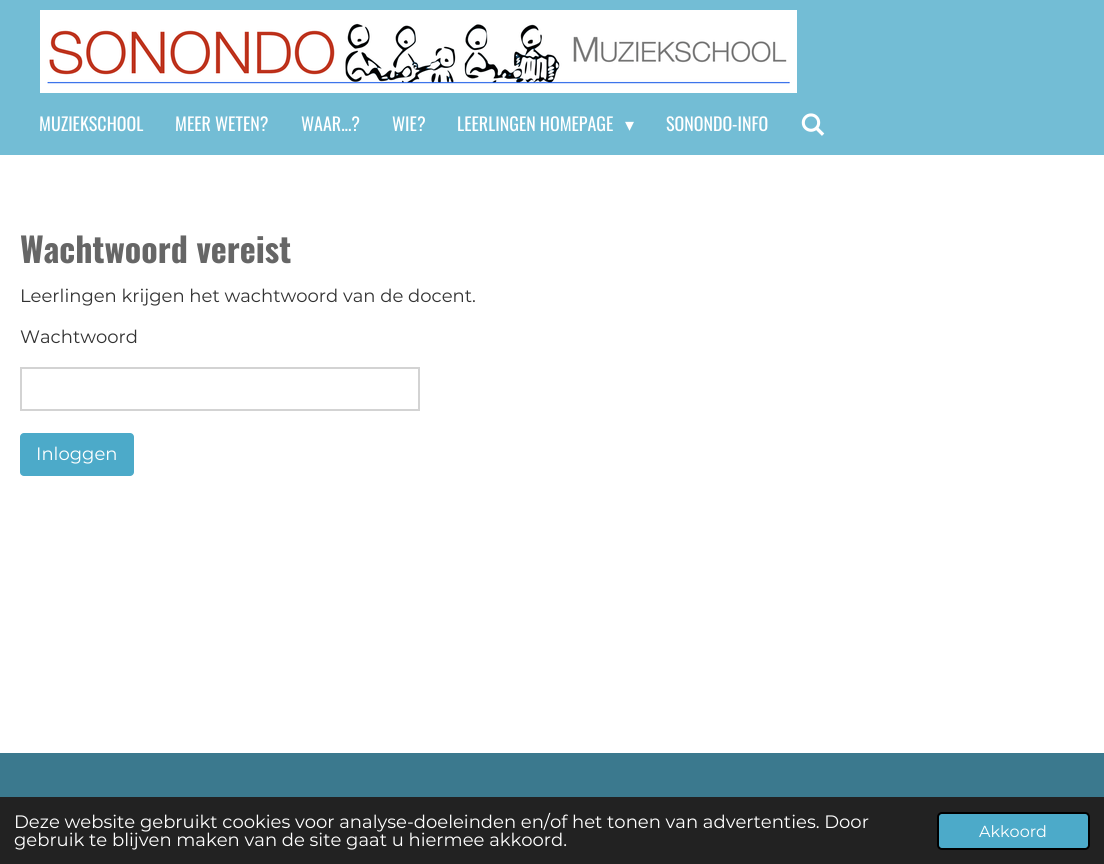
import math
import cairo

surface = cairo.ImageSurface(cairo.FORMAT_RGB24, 1104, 864)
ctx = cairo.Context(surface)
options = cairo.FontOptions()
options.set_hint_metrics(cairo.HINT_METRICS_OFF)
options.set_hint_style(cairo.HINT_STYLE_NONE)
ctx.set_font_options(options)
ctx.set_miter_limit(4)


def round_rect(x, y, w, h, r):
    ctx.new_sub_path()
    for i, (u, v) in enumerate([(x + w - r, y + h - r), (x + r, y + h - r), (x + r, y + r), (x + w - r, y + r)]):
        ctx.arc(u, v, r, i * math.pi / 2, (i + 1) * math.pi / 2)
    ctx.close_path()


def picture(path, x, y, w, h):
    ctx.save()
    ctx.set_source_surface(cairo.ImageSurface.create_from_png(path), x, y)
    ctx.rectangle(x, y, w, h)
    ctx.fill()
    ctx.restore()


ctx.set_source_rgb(1, 1, 1)
ctx.paint()
ctx.set_source_rgb(0.451, 0.741, 0.835)
ctx.rectangle(0, 0, 1104, 155)
ctx.fill()
picture("img1.png", 40, 10, 757, 83)
ctx.select_font_face("Oswald")
ctx.set_font_size(18)
ctx.set_source_rgb(1, 1, 1)
ctx.move_to(39, 131)
ctx.show_text("MUZIEKSCHOOL")
ctx.move_to(175, 131)
ctx.show_text("MEER WETEN?")
ctx.move_to(301, 131)
ctx.show_text("WAAR...?")
ctx.move_to(392, 131)
ctx.show_text("WIE?")
ctx.move_to(457, 131)
ctx.show_text("LEERLINGEN HOMEPAGE")
ctx.select_font_face("DejaVu Sans")
ctx.move_to(625, 131)
ctx.show_text("▾")
ctx.select_font_face("Oswald")
ctx.move_to(666, 131)
ctx.show_text("SONONDO-INFO")
picture("img2.png", 801, 113, 24, 23)
ctx.select_font_face("Oswald", cairo.FONT_SLANT_NORMAL, cairo.FONT_WEIGHT_BOLD)
ctx.set_font_size(34)
ctx.set_source_rgb(0.4, 0.4, 0.4)
ctx.move_to(20, 263)
ctx.show_text("Wachtwoord vereist")
ctx.select_font_face("Montserrat")
ctx.set_font_size(18)
ctx.set_source_rgb(0.196, 0.196, 0.196)
ctx.move_to(20, 302)
ctx.show_text("Leerlingen krijgen het wachtwoord van de docent.")
ctx.move_to(20, 343)
ctx.show_text("Wachtwoord")
ctx.rectangle(21, 368, 398, 42)
ctx.set_source_rgb(0.827, 0.827, 0.827)
ctx.stroke()
ctx.set_source_rgb(0.298, 0.667, 0.788)
round_rect(20, 433, 114, 43, 4)
ctx.fill()
ctx.set_source_rgb(1, 1, 1)
ctx.move_to(36, 460)
ctx.show_text("Inloggen")
ctx.set_source_rgb(0.231, 0.475, 0.557)
ctx.rectangle(0, 753, 1104, 44)
ctx.fill()
ctx.set_source_rgb(0.133, 0.133, 0.133)
ctx.rectangle(0, 797, 1104, 67)
ctx.fill()
ctx.set_source_rgb(1, 1, 1)
ctx.move_to(14, 828)
ctx.show_text("Deze website gebruikt cookies voor analyse-doeleinden en/of het tonen van advertenties. Door")
ctx.move_to(14, 846)
ctx.show_text("gebruik te blijven maken van de site gaat u hiermee akkoord.")
ctx.set_source_rgb(0.298, 0.667, 0.788)
round_rect(938, 813, 151, 36, 4)
ctx.fill_preserve()
ctx.set_source_rgb(0, 0, 0)
ctx.stroke()
ctx.set_font_size(16)
ctx.set_source_rgb(1, 1, 1)
ctx.move_to(979, 837)
ctx.show_text("Akkoord")
surface.write_to_png("page.png")
